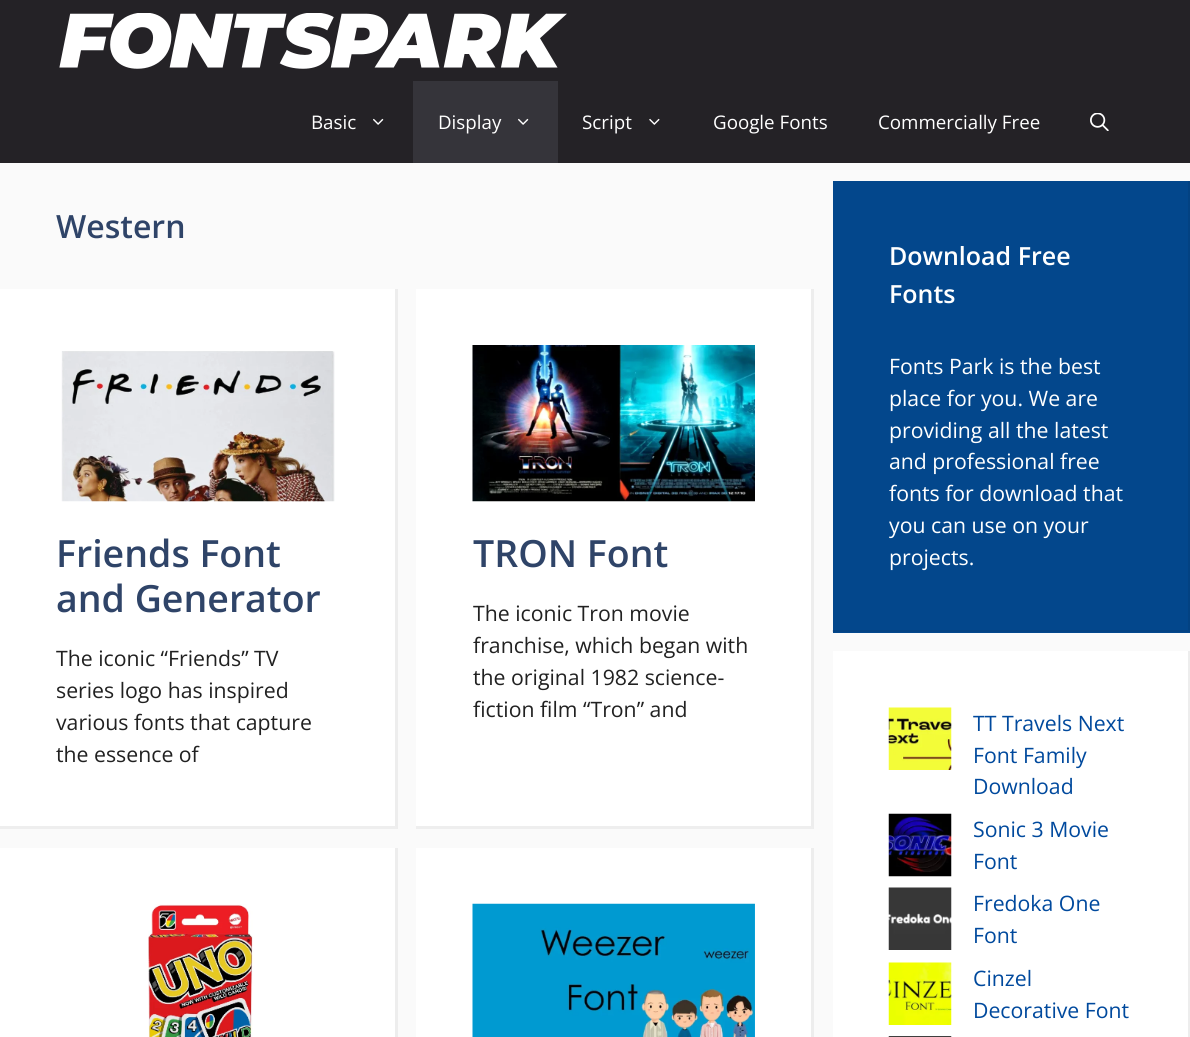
import math
import cairo

surface = cairo.ImageSurface(cairo.FORMAT_RGB24, 1190, 1037)
ctx = cairo.Context(surface)
options = cairo.FontOptions()
options.set_hint_metrics(cairo.HINT_METRICS_OFF)
options.set_hint_style(cairo.HINT_STYLE_NONE)
ctx.set_font_options(options)
ctx.set_miter_limit(4)


def picture(path, x, y, w, h):
    ctx.save()
    ctx.set_source_surface(cairo.ImageSurface.create_from_png(path), x, y)
    ctx.rectangle(x, y, w, h)
    ctx.fill()
    ctx.restore()


ctx.set_source_rgb(0.98, 0.98, 0.98)
ctx.paint()
ctx.set_source_rgb(0.141, 0.133, 0.149)
ctx.rectangle(0, 0, 1190, 163)
ctx.fill()
picture("img1.png", 59, 13, 508, 56)
ctx.select_font_face("Open Sans")
ctx.set_font_size(18.75)
ctx.set_source_rgb(1, 1, 1)
ctx.move_to(311, 129)
ctx.show_text("Basic")
picture("img2.png", 373, 118, 11, 7)
ctx.set_source_rgb(0.208, 0.204, 0.227)
ctx.rectangle(413, 81, 145, 82)
ctx.fill()
ctx.set_source_rgb(1, 1, 1)
ctx.move_to(438, 129)
ctx.show_text("Display")
picture("img3.png", 518, 118, 11, 7)
ctx.move_to(582, 129)
ctx.show_text("Script")
picture("img4.png", 649, 118, 11, 7)
ctx.move_to(713, 129)
ctx.show_text("Google Fonts")
ctx.move_to(878, 129)
ctx.show_text("Commercially Free")
picture("img5.png", 1090, 113, 19, 18)
ctx.select_font_face("Open Sans SemiBold")
ctx.set_font_size(32)
ctx.set_source_rgb(0.184, 0.267, 0.408)
ctx.move_to(56, 238)
ctx.show_text("Western")
ctx.set_source_rgb(1, 1, 1)
ctx.rectangle(0, 289, 398, 540)
ctx.fill()
ctx.set_source_rgb(0.929, 0.929, 0.929)
ctx.new_path()
ctx.move_to(398, 289)
ctx.line_to(398, 829)
ctx.line_to(395, 826)
ctx.line_to(395, 289)
ctx.close_path()
ctx.fill()
ctx.set_source_rgba(0, 0, 0, 0.07)
ctx.new_path()
ctx.move_to(398, 829)
ctx.line_to(0, 829)
ctx.line_to(0, 826)
ctx.line_to(395, 826)
ctx.close_path()
ctx.fill()
picture("img6.png", 61, 351, 274, 151)
ctx.set_font_size(37.5)
ctx.set_source_rgb(0.184, 0.267, 0.408)
ctx.move_to(56, 567)
ctx.show_text("Friends Font")
ctx.move_to(56, 612)
ctx.show_text("and Generator")
ctx.select_font_face("Open Sans")
ctx.set_font_size(21.25)
ctx.set_source_rgb(0.129, 0.129, 0.129)
ctx.move_to(56, 666)
ctx.show_text("The iconic “Friends” TV")
ctx.move_to(56, 698)
ctx.show_text("series logo has inspired")
ctx.move_to(56, 730)
ctx.show_text("various fonts that capture")
ctx.move_to(56, 762)
ctx.show_text("the essence of")
ctx.set_source_rgb(1, 1, 1)
ctx.rectangle(416, 289, 398, 540)
ctx.fill()
ctx.set_source_rgb(0.929, 0.929, 0.929)
ctx.new_path()
ctx.move_to(814, 289)
ctx.line_to(814, 829)
ctx.line_to(811, 826)
ctx.line_to(811, 289)
ctx.close_path()
ctx.fill()
ctx.set_source_rgba(0, 0, 0, 0.07)
ctx.new_path()
ctx.move_to(814, 829)
ctx.line_to(416, 829)
ctx.line_to(416, 826)
ctx.line_to(811, 826)
ctx.close_path()
ctx.fill()
picture("img7.png", 472, 345, 283, 157)
ctx.select_font_face("Open Sans SemiBold")
ctx.set_font_size(37.5)
ctx.set_source_rgb(0.184, 0.267, 0.408)
ctx.move_to(473, 567)
ctx.show_text("TRON Font")
ctx.select_font_face("Open Sans")
ctx.set_font_size(21.25)
ctx.set_source_rgb(0.129, 0.129, 0.129)
ctx.move_to(473, 621)
ctx.show_text("The iconic Tron movie")
ctx.move_to(473, 653)
ctx.show_text("franchise, which began with")
ctx.move_to(473, 685)
ctx.show_text("the original 1982 science-")
ctx.move_to(473, 717)
ctx.show_text("fiction film “Tron” and")
ctx.set_source_rgb(1, 1, 1)
ctx.rectangle(0, 848, 395, 189)
ctx.fill()
ctx.set_source_rgb(0.929, 0.929, 0.929)
ctx.new_path()
ctx.move_to(398, 848)
ctx.line_to(398, 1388)
ctx.line_to(395, 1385)
ctx.line_to(395, 848)
ctx.close_path()
ctx.fill()
picture("img8.png", 148, 904, 105, 133)
ctx.set_source_rgb(1, 1, 1)
ctx.rectangle(416, 848, 395, 189)
ctx.fill()
ctx.set_source_rgb(0.929, 0.929, 0.929)
ctx.new_path()
ctx.move_to(814, 848)
ctx.line_to(814, 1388)
ctx.line_to(811, 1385)
ctx.line_to(811, 848)
ctx.close_path()
ctx.fill()
picture("img9.png", 472, 903, 283, 134)
ctx.set_source_rgb(0.012, 0.278, 0.549)
ctx.rectangle(833, 181, 357, 452)
ctx.fill()
ctx.set_source_rgb(0.012, 0.259, 0.51)
ctx.new_path()
ctx.move_to(1190, 181)
ctx.line_to(1190, 632)
ctx.line_to(1188, 630)
ctx.line_to(1188, 181)
ctx.close_path()
ctx.fill()
ctx.set_source_rgba(0, 0, 0, 0.07)
ctx.new_path()
ctx.move_to(1190, 632)
ctx.line_to(832, 632)
ctx.line_to(832, 630)
ctx.line_to(1188, 630)
ctx.close_path()
ctx.fill()
ctx.select_font_face("Open Sans SemiBold")
ctx.set_font_size(25)
ctx.set_source_rgb(1, 1, 1)
ctx.move_to(889, 265)
ctx.show_text("Download Free")
ctx.move_to(889, 303)
ctx.show_text("Fonts")
ctx.select_font_face("Open Sans")
ctx.set_font_size(21.25)
ctx.move_to(889, 374)
ctx.show_text("Fonts Park is the best")
ctx.move_to(889, 406)
ctx.show_text("place for you. We are")
ctx.move_to(889, 438)
ctx.show_text("providing all the latest")
ctx.move_to(889, 469)
ctx.show_text("and professional free")
ctx.move_to(889, 501)
ctx.show_text("fonts for download that")
ctx.move_to(889, 533)
ctx.show_text("you can use on your")
ctx.move_to(889, 565)
ctx.show_text("projects.")
ctx.rectangle(833, 651, 355, 386)
ctx.fill()
ctx.set_source_rgb(0.929, 0.929, 0.929)
ctx.new_path()
ctx.move_to(1190, 651)
ctx.line_to(1190, 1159)
ctx.line_to(1188, 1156)
ctx.line_to(1188, 651)
ctx.close_path()
ctx.fill()
picture("img10.png", 888, 707, 64, 63)
ctx.set_source_rgb(0, 0.286, 0.616)
ctx.move_to(973, 731)
ctx.show_text("TT Travels Next")
ctx.move_to(973, 763)
ctx.show_text("Font Family")
ctx.move_to(973, 794)
ctx.show_text("Download")
picture("img11.png", 888, 813, 64, 64)
ctx.move_to(973, 837)
ctx.show_text("Sonic 3 Movie")
ctx.move_to(973, 869)
ctx.show_text("Font")
picture("img12.png", 888, 887, 64, 63)
ctx.move_to(973, 911)
ctx.show_text("Fredoka One")
ctx.move_to(973, 943)
ctx.show_text("Font")
picture("img13.png", 888, 962, 64, 63)
ctx.move_to(973, 986)
ctx.show_text("Cinzel")
ctx.move_to(973, 1018)
ctx.show_text("Decorative Font")
picture("img14.png", 888, 1036, 64, 1)
surface.write_to_png("page.png")
